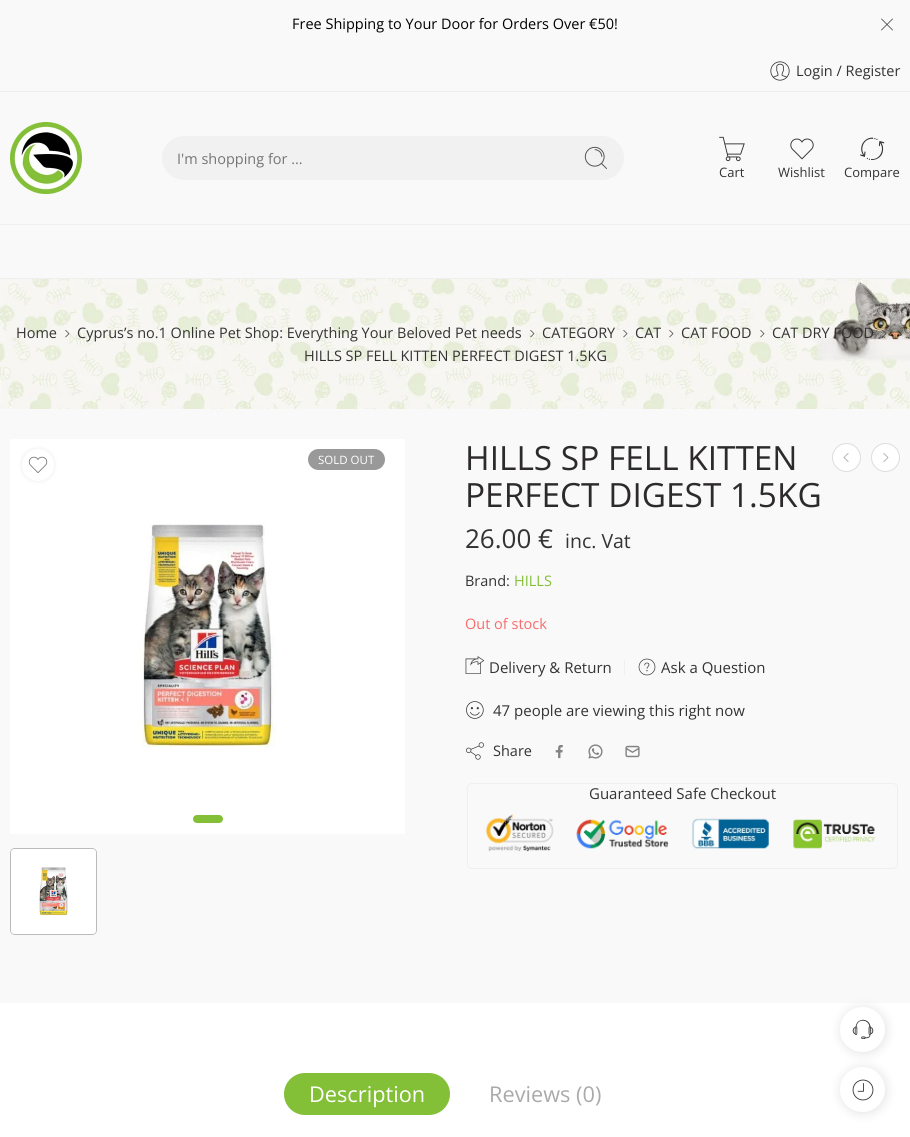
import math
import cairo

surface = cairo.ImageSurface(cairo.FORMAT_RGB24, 910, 1137)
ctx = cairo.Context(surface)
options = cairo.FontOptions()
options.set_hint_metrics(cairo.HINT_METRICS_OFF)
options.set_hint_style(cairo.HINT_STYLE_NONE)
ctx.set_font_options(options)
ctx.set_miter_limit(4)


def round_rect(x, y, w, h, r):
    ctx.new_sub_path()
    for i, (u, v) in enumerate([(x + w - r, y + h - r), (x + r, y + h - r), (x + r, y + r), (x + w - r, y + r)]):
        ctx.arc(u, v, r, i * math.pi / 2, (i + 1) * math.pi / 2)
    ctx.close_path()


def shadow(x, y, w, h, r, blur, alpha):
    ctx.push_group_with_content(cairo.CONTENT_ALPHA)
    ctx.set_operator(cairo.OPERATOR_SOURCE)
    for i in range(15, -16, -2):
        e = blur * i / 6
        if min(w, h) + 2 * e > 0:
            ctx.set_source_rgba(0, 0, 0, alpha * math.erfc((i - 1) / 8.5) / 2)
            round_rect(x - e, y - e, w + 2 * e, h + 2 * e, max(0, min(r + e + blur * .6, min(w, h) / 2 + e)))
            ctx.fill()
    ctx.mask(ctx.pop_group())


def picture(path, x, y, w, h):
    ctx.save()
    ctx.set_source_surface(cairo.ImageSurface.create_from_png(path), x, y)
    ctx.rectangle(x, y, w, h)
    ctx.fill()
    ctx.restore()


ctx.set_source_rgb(1, 1, 1)
ctx.paint()
ctx.set_source_rgb(0.973, 0.973, 0.973)
ctx.rectangle(0, 0, 910, 278)
ctx.fill()
ctx.select_font_face("Open Sans")
ctx.set_font_size(14.5)
ctx.set_source_rgb(0, 0, 0)
ctx.move_to(292, 29)
ctx.show_text("Free Shipping to Your Door for Orders Over €50!")
ctx.set_source_rgb(0.2, 0.2, 0.2)
ctx.new_path()
ctx.move_to(881, 30)
ctx.line_to(892.5, 18.5)
ctx.line_to(893, 19)
ctx.line_to(881.5, 30.5)
ctx.close_path()
ctx.fill()
ctx.new_path()
ctx.move_to(881.5, 18.5)
ctx.line_to(893, 30)
ctx.line_to(892.5, 30.5)
ctx.line_to(881, 19)
ctx.close_path()
ctx.fill()
ctx.set_source_rgb(0.925, 0.925, 0.925)
ctx.rectangle(0, 91, 910, 1)
ctx.fill()
picture("img1.png", 770, 61, 20, 20)
ctx.set_source_rgb(0.2, 0.2, 0.2)
ctx.move_to(796, 76)
ctx.show_text("Login / Register")
picture("img2.png", 10, 122, 72, 72)
ctx.set_source_rgb(0.945, 0.945, 0.945)
round_rect(162, 136, 462, 44, 22)
ctx.fill()
ctx.set_source_rgb(0.459, 0.459, 0.459)
ctx.move_to(177, 164)
ctx.show_text("I'm shopping for ...")
picture("img3.png", 584, 146, 23, 24)
picture("img4.png", 719, 136, 26, 26)
ctx.set_font_size(13)
ctx.set_source_rgb(0.2, 0.2, 0.2)
ctx.move_to(719, 177)
ctx.show_text("Cart")
picture("img5.png", 790, 138, 24, 22)
ctx.move_to(778, 177)
ctx.show_text("Wishlist")
picture("img6.png", 860, 137, 25, 23)
ctx.move_to(844, 177)
ctx.show_text("Compare")
ctx.set_source_rgb(0.937, 0.937, 0.937)
ctx.rectangle(0, 224, 910, 1)
ctx.fill()
ctx.rectangle(0, 278, 910, 1)
ctx.fill()
picture("img7.png", 0, 279, 910, 130)
ctx.set_font_size(14.5)
ctx.set_source_rgb(0.2, 0.2, 0.2)
ctx.move_to(16, 338)
ctx.show_text("Home")
picture("img8.png", 65, 330, 5, 8)
ctx.move_to(77, 338)
ctx.show_text("Cyprus’s no.1 Online Pet Shop: Everything Your Beloved Pet needs")
picture("img9.png", 530, 330, 5, 8)
ctx.move_to(542, 338)
ctx.show_text("CATEGORY")
picture("img10.png", 623, 330, 5, 8)
ctx.move_to(635, 338)
ctx.show_text("CAT")
picture("img11.png", 669, 330, 5, 8)
ctx.move_to(681, 338)
ctx.show_text("CAT FOOD")
picture("img12.png", 760, 330, 5, 8)
ctx.move_to(772, 338)
ctx.show_text("CAT DRY FOOD")
picture("img13.png", 882, 330, 5, 8)
ctx.move_to(304, 361)
ctx.show_text("HILLS SP FELL KITTEN PERFECT DIGEST 1.5KG")
ctx.set_source_rgb(0.973, 0.973, 0.973)
ctx.rectangle(0, 409, 910, 594)
ctx.fill()
picture("img14.png", 10, 439, 395, 395)
ctx.set_source_rgb(0.514, 0.749, 0.216)
round_rect(193, 815, 30, 8, 4)
ctx.fill()
ctx.set_source_rgb(0, 0, 0)
shadow(22, 449, 32, 32, 16, 2.5, 0.08)
ctx.set_source_rgb(1, 1, 1)
ctx.arc(38, 465, 16, 0, 2 * math.pi)
ctx.fill()
picture("img15.png", 28, 456, 20, 17)
round_rect(10.5, 848.5, 86, 86, 4.5)
ctx.set_source_rgb(0.733, 0.733, 0.733)
ctx.set_line_width(1)
ctx.stroke()
picture("img16.png", 11, 849, 85, 85)
ctx.set_source_rgb(0.6, 0.6, 0.6)
round_rect(308, 449, 77, 21, 10.5)
ctx.fill()
ctx.set_font_size(11.5)
ctx.set_source_rgb(1, 1, 1)
ctx.move_to(318, 464)
ctx.show_text("SOLD OUT")
ctx.set_font_size(33.4)
ctx.set_source_rgb(0.176, 0.165, 0.165)
ctx.move_to(465, 470)
ctx.show_text("HILLS SP FELL KITTEN")
ctx.move_to(465, 507)
ctx.show_text("PERFECT DIGEST 1.5KG")
ctx.set_source_rgb(1, 1, 1)
ctx.new_path()
ctx.arc(846.5, 457.5, 14, 0, 2 * math.pi)
ctx.fill_preserve()
ctx.set_source_rgb(0.867, 0.867, 0.867)
ctx.stroke()
picture("img17.png", 843, 453, 6, 9)
ctx.set_source_rgb(1, 1, 1)
ctx.arc(885.5, 457.5, 14, 0, 2 * math.pi)
ctx.fill_preserve()
ctx.set_source_rgb(0.867, 0.867, 0.867)
ctx.stroke()
picture("img18.png", 883, 453, 6, 9)
ctx.set_font_size(26)
ctx.set_source_rgb(0.2, 0.2, 0.2)
ctx.move_to(465, 548)
ctx.show_text("26.00 €")
ctx.set_font_size(19.5)
ctx.move_to(565, 548)
ctx.show_text("inc. Vat")
ctx.set_font_size(14.5)
ctx.move_to(465, 586)
ctx.show_text("Brand:")
ctx.set_source_rgb(0.514, 0.749, 0.216)
ctx.move_to(514, 586)
ctx.show_text("HILLS")
ctx.set_source_rgb(0.969, 0.42, 0.416)
ctx.move_to(465, 629)
ctx.show_text("Out of stock")
picture("img19.png", 465, 656, 20, 18)
ctx.set_font_size(15)
ctx.set_source_rgb(0.2, 0.2, 0.2)
ctx.move_to(489, 673)
ctx.show_text("Delivery & Return")
ctx.set_source_rgb(0.937, 0.937, 0.937)
ctx.rectangle(624, 660, 1, 15)
ctx.fill()
picture("img20.png", 638, 658, 18, 18)
ctx.set_source_rgb(0.2, 0.2, 0.2)
ctx.move_to(661, 673)
ctx.show_text("Ask a Question")
picture("img21.png", 466, 701, 18, 18)
ctx.move_to(493, 716)
ctx.show_text("47 people are viewing this right now")
picture("img22.png", 466, 742, 18, 18)
ctx.set_font_size(14.5)
ctx.move_to(493, 756)
ctx.show_text("Share")
picture("img23.png", 555, 745, 8, 14)
picture("img24.png", 588, 744, 15, 15)
picture("img25.png", 625, 745, 15, 13)
round_rect(467.5, 783.5, 430, 85, 4.5)
ctx.set_source_rgb(0.937, 0.937, 0.937)
ctx.stroke()
ctx.set_font_size(15)
ctx.set_source_rgb(0.2, 0.2, 0.2)
ctx.move_to(589, 799)
ctx.show_text("Guaranteed Safe Checkout")
picture("img26.png", 485, 814, 391, 38)
ctx.set_source_rgb(0.514, 0.749, 0.216)
round_rect(284, 1073, 166, 42, 21)
ctx.fill()
ctx.set_font_size(21.75)
ctx.set_source_rgb(1, 1, 1)
ctx.move_to(309, 1102)
ctx.show_text("Description")
ctx.set_source_rgb(0.667, 0.667, 0.667)
ctx.move_to(489, 1102)
ctx.show_text("Reviews (0)")
ctx.set_source_rgb(0, 0, 0)
shadow(840, 1007, 47, 47, 23.5, 5, 0.1)
ctx.set_source_rgb(1, 1, 1)
ctx.arc(862.5, 1029.5, 22.5, 0, 2 * math.pi)
ctx.fill()
picture("img27.png", 852, 1019, 22, 20)
ctx.set_source_rgb(0, 0, 0)
shadow(840, 1067, 47, 47, 23.5, 5, 0.1)
ctx.set_source_rgb(1, 1, 1)
ctx.arc(862.5, 1089.5, 22.5, 0, 2 * math.pi)
ctx.fill()
picture("img28.png", 852, 1079, 22, 22)
surface.write_to_png("page.png")
